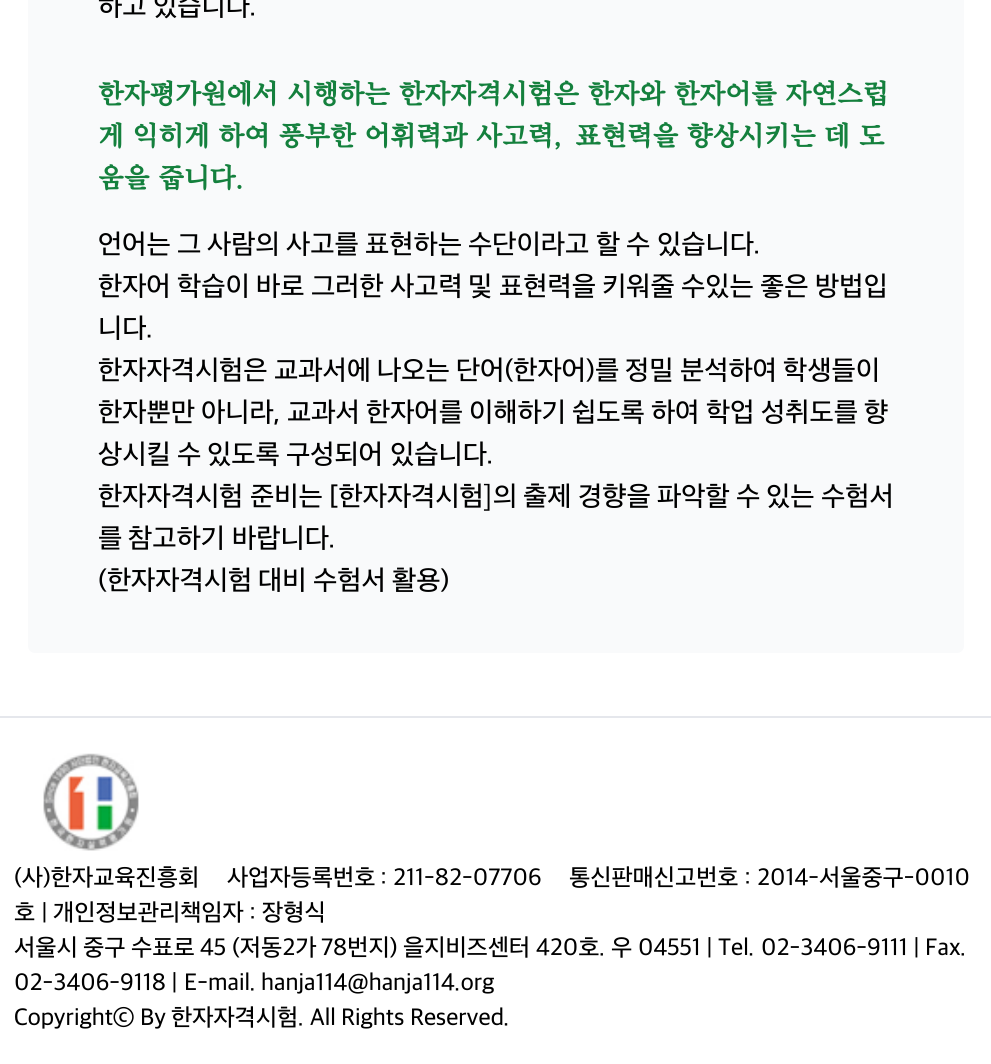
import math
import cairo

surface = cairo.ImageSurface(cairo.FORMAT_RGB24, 991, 1064)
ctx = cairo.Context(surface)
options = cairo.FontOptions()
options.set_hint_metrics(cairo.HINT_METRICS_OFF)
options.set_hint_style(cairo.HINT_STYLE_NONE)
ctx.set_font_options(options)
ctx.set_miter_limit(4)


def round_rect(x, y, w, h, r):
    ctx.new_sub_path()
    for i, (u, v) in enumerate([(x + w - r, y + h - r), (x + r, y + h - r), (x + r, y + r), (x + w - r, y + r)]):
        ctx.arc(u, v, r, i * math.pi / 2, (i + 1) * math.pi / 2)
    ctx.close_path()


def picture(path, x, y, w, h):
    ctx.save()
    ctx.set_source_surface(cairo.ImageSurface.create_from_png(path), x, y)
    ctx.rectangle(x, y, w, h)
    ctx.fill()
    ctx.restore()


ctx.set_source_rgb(1, 1, 1)
ctx.paint()
ctx.set_source_rgb(0.976, 0.98, 0.984)
round_rect(28, -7, 936, 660, 7)
ctx.fill()
ctx.select_font_face("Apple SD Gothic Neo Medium")
ctx.set_font_size(28)
ctx.set_source_rgb(0, 0, 0)
ctx.move_to(98, 16)
ctx.show_text("하고")
ctx.move_to(153, 16)
ctx.show_text("있습니다.")
ctx.select_font_face("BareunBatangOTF", cairo.FONT_SLANT_NORMAL, cairo.FONT_WEIGHT_BOLD)
ctx.set_source_rgb(0.082, 0.502, 0.239)
ctx.move_to(98, 102)
ctx.show_text("한자평가원에서 시행하는 한자자격시험은 한자와 한자어를 자연스럽")
ctx.move_to(98, 144)
ctx.show_text("게 익히게 하여 풍부한 어휘력과 사고력, 표현력을 향상시키는 데 도")
ctx.move_to(98, 186)
ctx.show_text("움을 줍니다.")
ctx.select_font_face("Apple SD Gothic Neo Medium")
ctx.set_source_rgb(0, 0, 0)
ctx.move_to(98, 254)
ctx.show_text("언어는")
ctx.move_to(177, 254)
ctx.show_text("그")
ctx.move_to(207, 254)
ctx.show_text("사람의")
ctx.move_to(286, 254)
ctx.show_text("사고를")
ctx.move_to(365, 254)
ctx.show_text("표현하는")
ctx.move_to(468, 254)
ctx.show_text("수단이라고")
ctx.move_to(596, 254)
ctx.show_text("할")
ctx.move_to(626, 254)
ctx.show_text("수")
ctx.move_to(657, 254)
ctx.show_text("있습니다.")
ctx.move_to(98, 296)
ctx.show_text("한자어")
ctx.move_to(177, 296)
ctx.show_text("학습이")
ctx.move_to(256, 296)
ctx.show_text("바로")
ctx.move_to(311, 296)
ctx.show_text("그러한")
ctx.move_to(390, 296)
ctx.show_text("사고력")
ctx.move_to(468, 296)
ctx.show_text("및")
ctx.move_to(499, 296)
ctx.show_text("표현력을")
ctx.move_to(602, 296)
ctx.show_text("키워줄")
ctx.move_to(681, 296)
ctx.show_text("수있는")
ctx.move_to(760, 296)
ctx.show_text("좋은")
ctx.move_to(815, 296)
ctx.show_text("방법입")
ctx.move_to(98, 338)
ctx.show_text("니다.")
ctx.move_to(98, 380)
ctx.show_text("한자자격시험은")
ctx.move_to(274, 380)
ctx.show_text("교과서에")
ctx.move_to(377, 380)
ctx.show_text("나오는")
ctx.move_to(456, 380)
ctx.show_text("단어(한자어)를")
ctx.move_to(625, 380)
ctx.show_text("정밀")
ctx.move_to(680, 380)
ctx.show_text("분석하여")
ctx.move_to(783, 380)
ctx.show_text("학생들이")
ctx.move_to(98, 422)
ctx.show_text("한자뿐만")
ctx.move_to(201, 422)
ctx.show_text("아니라,")
ctx.move_to(287, 422)
ctx.show_text("교과서")
ctx.move_to(366, 422)
ctx.show_text("한자어를")
ctx.move_to(469, 422)
ctx.show_text("이해하기")
ctx.move_to(572, 422)
ctx.show_text("쉽도록")
ctx.move_to(651, 422)
ctx.show_text("하여")
ctx.move_to(706, 422)
ctx.show_text("학업")
ctx.move_to(761, 422)
ctx.show_text("성취도를")
ctx.move_to(864, 422)
ctx.show_text("향")
ctx.move_to(98, 464)
ctx.show_text("상시킬")
ctx.move_to(177, 464)
ctx.show_text("수")
ctx.move_to(207, 464)
ctx.show_text("있도록")
ctx.move_to(286, 464)
ctx.show_text("구성되어")
ctx.move_to(390, 464)
ctx.show_text("있습니다.")
ctx.move_to(98, 506)
ctx.show_text("한자자격시험")
ctx.move_to(250, 506)
ctx.show_text("준비는")
ctx.move_to(329, 506)
ctx.show_text("[한자자격시험")
ctx.select_font_face("Noto Sans KR")
ctx.move_to(483, 506)
ctx.show_text("]")
ctx.select_font_face("Apple SD Gothic Neo Medium")
ctx.move_to(493, 506)
ctx.show_text("의")
ctx.move_to(523, 506)
ctx.show_text("출제")
ctx.move_to(578, 506)
ctx.show_text("경향을")
ctx.move_to(657, 506)
ctx.show_text("파악할")
ctx.move_to(736, 506)
ctx.show_text("수")
ctx.move_to(766, 506)
ctx.show_text("있는")
ctx.move_to(821, 506)
ctx.show_text("수험서")
ctx.move_to(98, 548)
ctx.show_text("를")
ctx.move_to(128, 548)
ctx.show_text("참고하기")
ctx.move_to(232, 548)
ctx.show_text("바랍니다.")
ctx.move_to(98, 590)
ctx.show_text("(한자자격시험")
ctx.move_to(258, 590)
ctx.show_text("대비")
ctx.move_to(313, 590)
ctx.show_text("수험서")
ctx.move_to(392, 590)
ctx.show_text("활용)")
ctx.set_source_rgb(0.898, 0.906, 0.922)
ctx.rectangle(0, 716, 991, 2)
ctx.fill()
picture("img1.png", 43, 753, 96, 98)
ctx.set_font_size(24.5)
ctx.set_source_rgb(0, 0, 0)
ctx.move_to(14, 886)
ctx.show_text("(사)한자교육진흥회")
ctx.move_to(227, 886)
ctx.show_text("사업자등록번호")
ctx.move_to(380, 886)
ctx.show_text(":")
ctx.move_to(393, 886)
ctx.show_text("211-82-07706")
ctx.move_to(569, 886)
ctx.show_text("통신판매신고번호")
ctx.move_to(744, 886)
ctx.show_text(":")
ctx.move_to(757, 886)
ctx.show_text("2014-서울중구-0010")
ctx.move_to(14, 921)
ctx.show_text("호")
ctx.move_to(41, 921)
ctx.show_text("|")
ctx.move_to(53, 921)
ctx.show_text("개인정보관리책임자")
ctx.move_to(249, 921)
ctx.show_text(":")
ctx.move_to(262, 921)
ctx.show_text("장형식")
ctx.move_to(14, 956)
ctx.show_text("서울시")
ctx.move_to(83, 956)
ctx.show_text("중구")
ctx.move_to(131, 956)
ctx.show_text("수표로")
ctx.move_to(200, 956)
ctx.show_text("45")
ctx.move_to(232, 956)
ctx.show_text("(저동2가")
ctx.move_to(321, 956)
ctx.show_text("78번지)")
ctx.move_to(403, 956)
ctx.show_text("을지비즈센터")
ctx.move_to(536, 956)
ctx.show_text("420호.")
ctx.move_to(611, 956)
ctx.show_text("우")
ctx.move_to(638, 956)
ctx.show_text("04551")
ctx.move_to(706, 956)
ctx.show_text("|")
ctx.move_to(718, 956)
ctx.show_text("Tel.")
ctx.move_to(761, 956)
ctx.show_text("02-3406-9111")
ctx.move_to(913, 956)
ctx.show_text("|")
ctx.move_to(925, 956)
ctx.show_text("Fax.")
ctx.move_to(14, 991)
ctx.show_text("02-3406-9118")
ctx.move_to(171, 991)
ctx.show_text("|")
ctx.move_to(184, 991)
ctx.show_text("E-mail.")
ctx.move_to(261, 991)
ctx.show_text("hanja114@hanja114.org")
ctx.move_to(14, 1026)
ctx.show_text("Copyrightⓒ")
ctx.move_to(140, 1026)
ctx.show_text("By")
ctx.move_to(171, 1026)
ctx.show_text("한자자격시험.")
ctx.move_to(310, 1026)
ctx.show_text("All")
ctx.move_to(341, 1026)
ctx.show_text("Rights")
ctx.move_to(410, 1026)
ctx.show_text("Reserved.")
surface.write_to_png("page.png")
